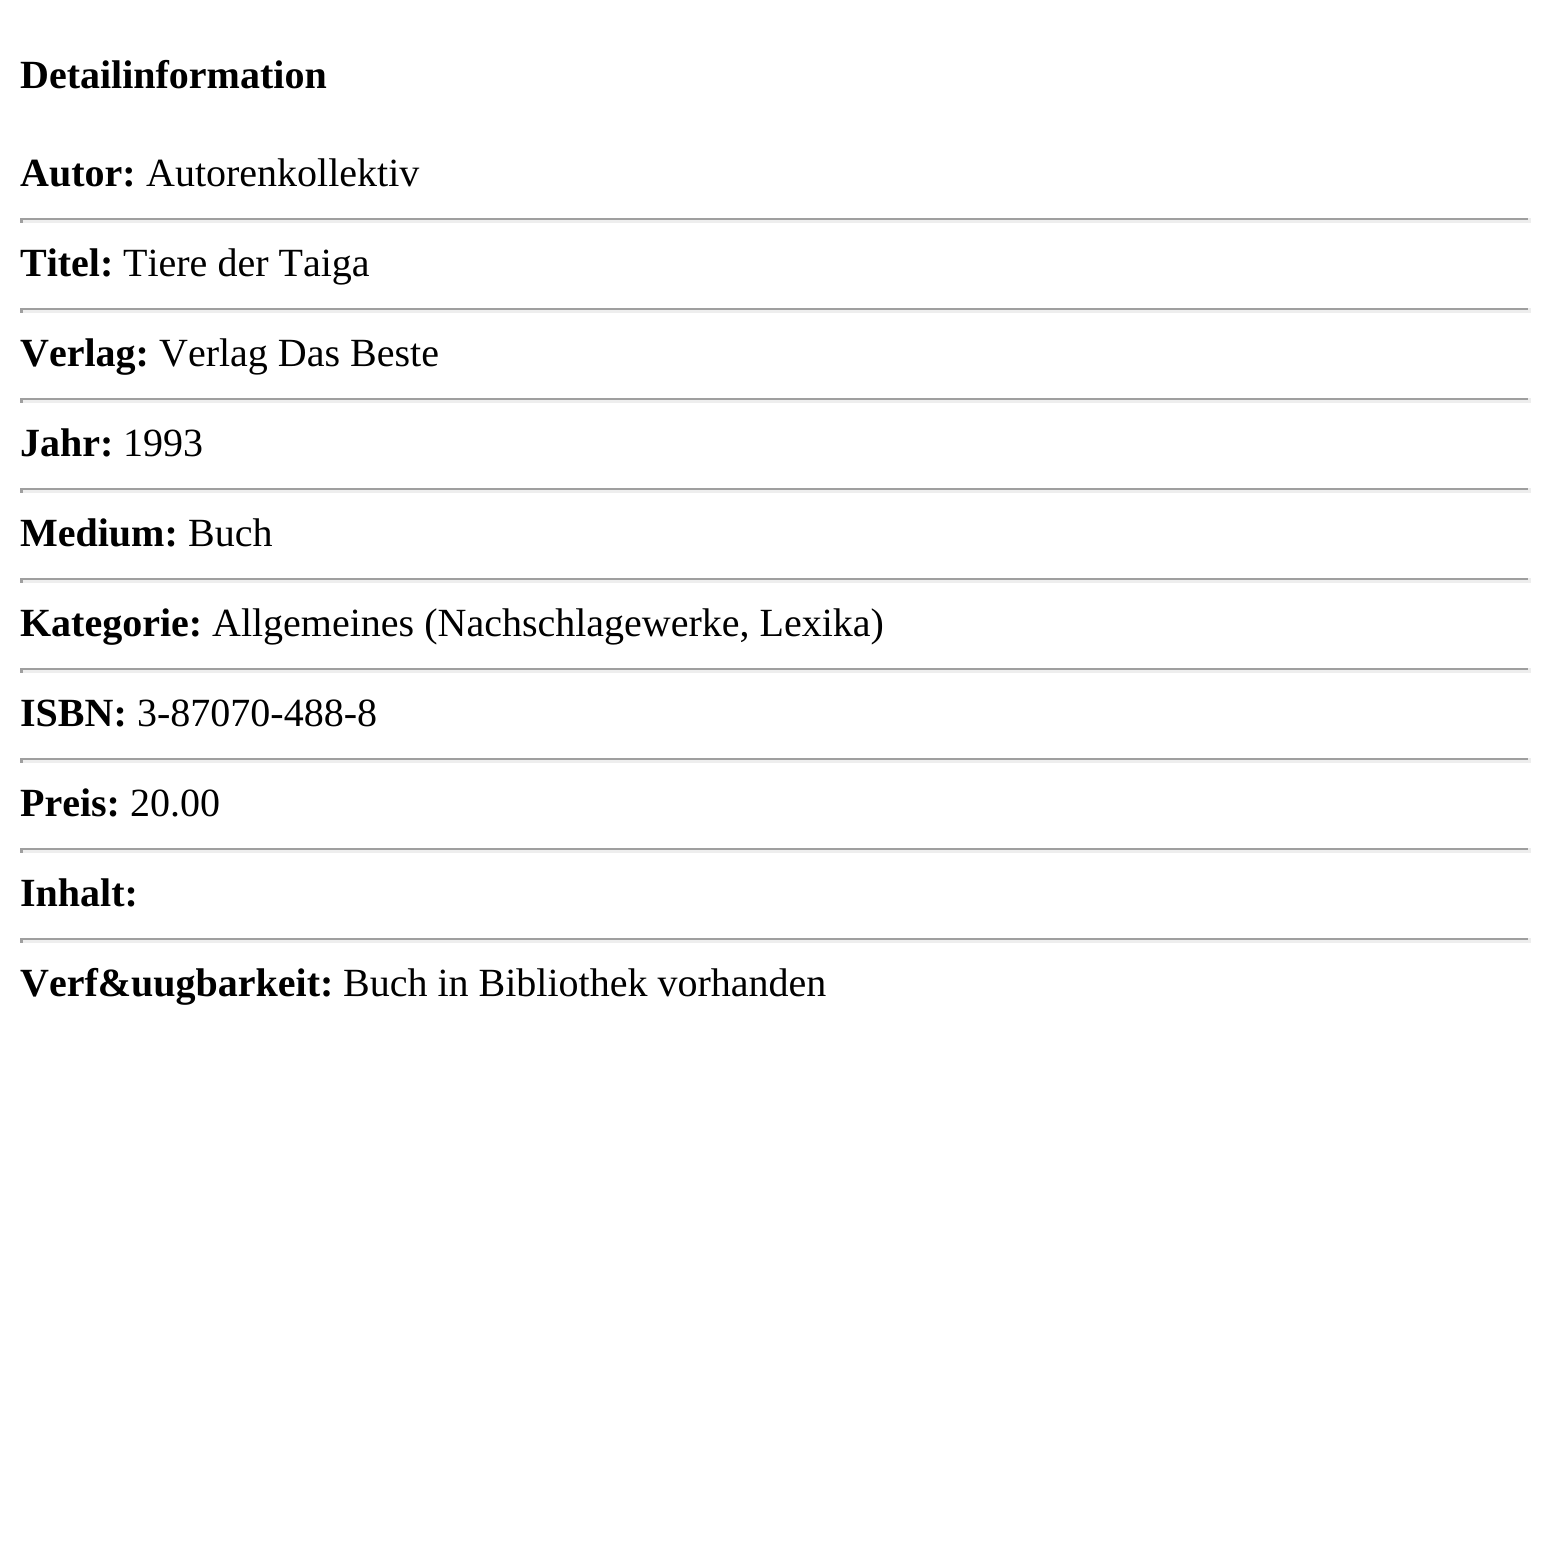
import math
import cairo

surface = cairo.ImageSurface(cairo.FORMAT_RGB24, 1549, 1542)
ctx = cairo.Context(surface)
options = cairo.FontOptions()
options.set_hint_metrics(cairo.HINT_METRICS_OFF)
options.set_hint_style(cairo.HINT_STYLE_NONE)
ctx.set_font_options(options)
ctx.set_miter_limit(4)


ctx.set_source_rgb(1, 1, 1)
ctx.paint()
ctx.select_font_face("Liberation Serif", cairo.FONT_SLANT_NORMAL, cairo.FONT_WEIGHT_BOLD)
ctx.set_font_size(40)
ctx.set_source_rgb(0, 0, 0)
ctx.move_to(20, 88)
ctx.show_text("Detailinformation")
ctx.move_to(20, 186)
ctx.show_text("Autor:")
ctx.select_font_face("Liberation Serif")
ctx.move_to(146, 186)
ctx.show_text("Autorenkollektiv")
ctx.set_source_rgb(0.624, 0.624, 0.624)
ctx.rectangle(20, 218, 1510, 2)
ctx.fill()
ctx.set_source_rgb(0.933, 0.933, 0.933)
ctx.rectangle(1528, 218, 3, 5)
ctx.fill()
ctx.rectangle(20, 220, 1510, 3)
ctx.fill()
ctx.set_source_rgb(0.624, 0.624, 0.624)
ctx.rectangle(20, 218, 3, 5)
ctx.fill()
ctx.select_font_face("Liberation Serif", cairo.FONT_SLANT_NORMAL, cairo.FONT_WEIGHT_BOLD)
ctx.set_source_rgb(0, 0, 0)
ctx.move_to(20, 276)
ctx.show_text("Titel:")
ctx.select_font_face("Liberation Serif")
ctx.move_to(123, 276)
ctx.show_text("Tiere der Taiga")
ctx.set_source_rgb(0.624, 0.624, 0.624)
ctx.rectangle(20, 308, 1510, 2)
ctx.fill()
ctx.set_source_rgb(0.933, 0.933, 0.933)
ctx.rectangle(1528, 308, 3, 5)
ctx.fill()
ctx.rectangle(20, 310, 1510, 3)
ctx.fill()
ctx.set_source_rgb(0.624, 0.624, 0.624)
ctx.rectangle(20, 308, 3, 5)
ctx.fill()
ctx.select_font_face("Liberation Serif", cairo.FONT_SLANT_NORMAL, cairo.FONT_WEIGHT_BOLD)
ctx.set_source_rgb(0, 0, 0)
ctx.move_to(20, 366)
ctx.show_text("Verlag:")
ctx.select_font_face("Liberation Serif")
ctx.move_to(159, 366)
ctx.show_text("Verlag Das Beste")
ctx.set_source_rgb(0.624, 0.624, 0.624)
ctx.rectangle(20, 398, 1510, 2)
ctx.fill()
ctx.set_source_rgb(0.933, 0.933, 0.933)
ctx.rectangle(1528, 398, 3, 5)
ctx.fill()
ctx.rectangle(20, 400, 1510, 3)
ctx.fill()
ctx.set_source_rgb(0.624, 0.624, 0.624)
ctx.rectangle(20, 398, 3, 5)
ctx.fill()
ctx.select_font_face("Liberation Serif", cairo.FONT_SLANT_NORMAL, cairo.FONT_WEIGHT_BOLD)
ctx.set_source_rgb(0, 0, 0)
ctx.move_to(20, 456)
ctx.show_text("Jahr:")
ctx.select_font_face("Liberation Serif")
ctx.move_to(123, 456)
ctx.show_text("1993")
ctx.set_source_rgb(0.624, 0.624, 0.624)
ctx.rectangle(20, 488, 1510, 2)
ctx.fill()
ctx.set_source_rgb(0.933, 0.933, 0.933)
ctx.rectangle(1528, 488, 3, 5)
ctx.fill()
ctx.rectangle(20, 490, 1510, 3)
ctx.fill()
ctx.set_source_rgb(0.624, 0.624, 0.624)
ctx.rectangle(20, 488, 3, 5)
ctx.fill()
ctx.select_font_face("Liberation Serif", cairo.FONT_SLANT_NORMAL, cairo.FONT_WEIGHT_BOLD)
ctx.set_source_rgb(0, 0, 0)
ctx.move_to(20, 546)
ctx.show_text("Medium:")
ctx.select_font_face("Liberation Serif")
ctx.move_to(188, 546)
ctx.show_text("Buch")
ctx.set_source_rgb(0.624, 0.624, 0.624)
ctx.rectangle(20, 578, 1510, 2)
ctx.fill()
ctx.set_source_rgb(0.933, 0.933, 0.933)
ctx.rectangle(1528, 578, 3, 5)
ctx.fill()
ctx.rectangle(20, 580, 1510, 3)
ctx.fill()
ctx.set_source_rgb(0.624, 0.624, 0.624)
ctx.rectangle(20, 578, 3, 5)
ctx.fill()
ctx.select_font_face("Liberation Serif", cairo.FONT_SLANT_NORMAL, cairo.FONT_WEIGHT_BOLD)
ctx.set_source_rgb(0, 0, 0)
ctx.move_to(20, 636)
ctx.show_text("Kategorie:")
ctx.select_font_face("Liberation Serif")
ctx.move_to(212, 636)
ctx.show_text("Allgemeines (Nachschlagewerke, Lexika)")
ctx.set_source_rgb(0.624, 0.624, 0.624)
ctx.rectangle(20, 668, 1510, 2)
ctx.fill()
ctx.set_source_rgb(0.933, 0.933, 0.933)
ctx.rectangle(1528, 668, 3, 5)
ctx.fill()
ctx.rectangle(20, 670, 1510, 3)
ctx.fill()
ctx.set_source_rgb(0.624, 0.624, 0.624)
ctx.rectangle(20, 668, 3, 5)
ctx.fill()
ctx.select_font_face("Liberation Serif", cairo.FONT_SLANT_NORMAL, cairo.FONT_WEIGHT_BOLD)
ctx.set_source_rgb(0, 0, 0)
ctx.move_to(20, 726)
ctx.show_text("ISBN:")
ctx.select_font_face("Liberation Serif")
ctx.move_to(137, 726)
ctx.show_text("3-87070-488-8")
ctx.set_source_rgb(0.624, 0.624, 0.624)
ctx.rectangle(20, 758, 1510, 2)
ctx.fill()
ctx.set_source_rgb(0.933, 0.933, 0.933)
ctx.rectangle(1528, 758, 3, 5)
ctx.fill()
ctx.rectangle(20, 760, 1510, 3)
ctx.fill()
ctx.set_source_rgb(0.624, 0.624, 0.624)
ctx.rectangle(20, 758, 3, 5)
ctx.fill()
ctx.select_font_face("Liberation Serif", cairo.FONT_SLANT_NORMAL, cairo.FONT_WEIGHT_BOLD)
ctx.set_source_rgb(0, 0, 0)
ctx.move_to(20, 816)
ctx.show_text("Preis:")
ctx.select_font_face("Liberation Serif")
ctx.move_to(130, 816)
ctx.show_text("20.00")
ctx.set_source_rgb(0.624, 0.624, 0.624)
ctx.rectangle(20, 848, 1510, 2)
ctx.fill()
ctx.set_source_rgb(0.933, 0.933, 0.933)
ctx.rectangle(1528, 848, 3, 5)
ctx.fill()
ctx.rectangle(20, 850, 1510, 3)
ctx.fill()
ctx.set_source_rgb(0.624, 0.624, 0.624)
ctx.rectangle(20, 848, 3, 5)
ctx.fill()
ctx.select_font_face("Liberation Serif", cairo.FONT_SLANT_NORMAL, cairo.FONT_WEIGHT_BOLD)
ctx.set_source_rgb(0, 0, 0)
ctx.move_to(20, 906)
ctx.show_text("Inhalt:")
ctx.set_source_rgb(0.624, 0.624, 0.624)
ctx.rectangle(20, 938, 1510, 2)
ctx.fill()
ctx.set_source_rgb(0.933, 0.933, 0.933)
ctx.rectangle(1528, 938, 3, 5)
ctx.fill()
ctx.rectangle(20, 940, 1510, 3)
ctx.fill()
ctx.set_source_rgb(0.624, 0.624, 0.624)
ctx.rectangle(20, 938, 3, 5)
ctx.fill()
ctx.set_source_rgb(0, 0, 0)
ctx.move_to(20, 996)
ctx.show_text("Verf&uugbarkeit:")
ctx.select_font_face("Liberation Serif")
ctx.move_to(343, 996)
ctx.show_text("Buch in Bibliothek vorhanden")
surface.write_to_png("page.png")
